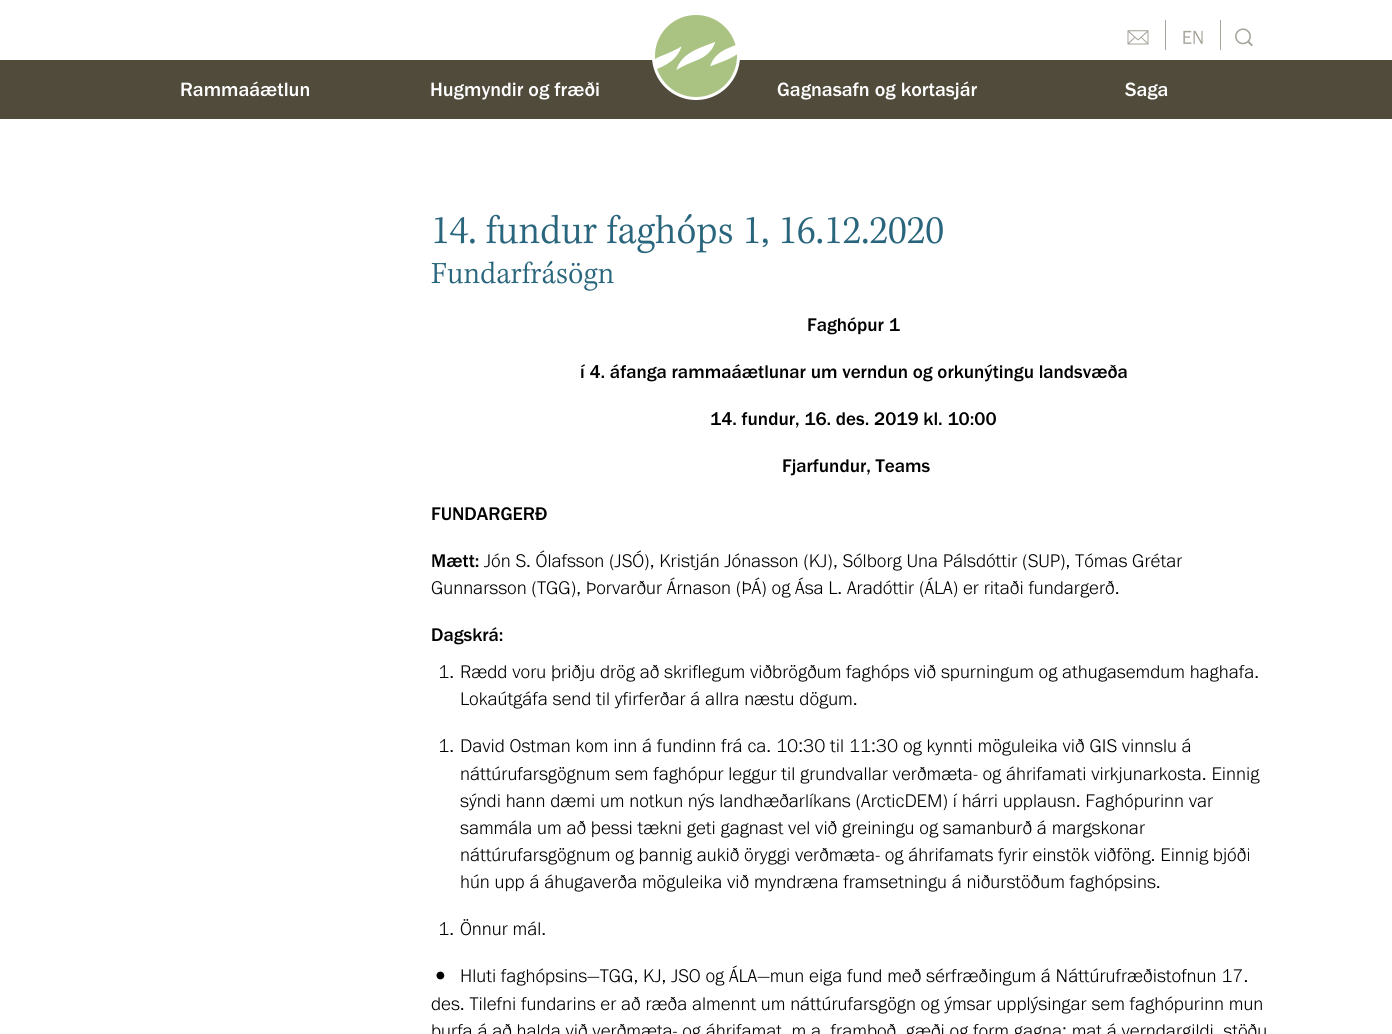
import math
import cairo

surface = cairo.ImageSurface(cairo.FORMAT_RGB24, 1392, 1034)
ctx = cairo.Context(surface)
options = cairo.FontOptions()
options.set_hint_metrics(cairo.HINT_METRICS_OFF)
options.set_hint_style(cairo.HINT_STYLE_NONE)
ctx.set_font_options(options)
ctx.set_miter_limit(4)


def picture(path, x, y, w, h):
    ctx.save()
    ctx.set_source_surface(cairo.ImageSurface.create_from_png(path), x, y)
    ctx.rectangle(x, y, w, h)
    ctx.fill()
    ctx.restore()


ctx.set_source_rgb(1, 1, 1)
ctx.paint()
ctx.set_source_rgb(0.318, 0.294, 0.235)
ctx.rectangle(0, 60, 1392, 59)
ctx.fill()
picture("img1.png", 652, 15, 88, 85)
picture("img2.png", 1235, 28, 18, 19)
picture("img3.png", 1127, 30, 22, 15)
ctx.set_source_rgb(0.651, 0.643, 0.608)
ctx.rectangle(1220, 20, 1, 30)
ctx.fill()
ctx.rectangle(1165, 20, 1, 30)
ctx.fill()
picture("img4.png", 1183, 30, 20, 14)
ctx.select_font_face("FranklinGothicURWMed")
ctx.set_font_size(20)
ctx.set_source_rgb(1, 1, 1)
ctx.move_to(180, 96)
ctx.show_text("Rammaáætlun")
ctx.move_to(430, 96)
ctx.show_text("Hugmyndir og fræði")
ctx.move_to(777, 96)
ctx.show_text("Gagnasafn og kortasjár")
ctx.move_to(1125, 96)
ctx.show_text("Saga")
picture("img5.png", 434, 213, 509, 41)
picture("img6.png", 431, 260, 183, 31)
ctx.set_font_size(19)
ctx.set_source_rgb(0, 0, 0)
ctx.move_to(807, 331)
ctx.show_text("Faghópur 1")
ctx.move_to(580, 378)
ctx.show_text("í 4. áfanga rammaáætlunar um verndun og orkunýtingu landsvæða")
ctx.move_to(710, 425)
ctx.show_text("14. fundur, 16. des. 2019 kl. 10:00")
ctx.move_to(782, 472)
ctx.show_text("Fjarfundur, Teams")
ctx.move_to(431, 520)
ctx.show_text("FUNDARGERÐ")
ctx.move_to(431, 567)
ctx.show_text("Mætt:")
ctx.select_font_face("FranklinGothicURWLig")
ctx.move_to(484, 567)
ctx.show_text("Jón S. Ólafsson (JSÓ), Kristján Jónasson (KJ), Sólborg Una Pálsdóttir (SUP), Tómas Grétar")
ctx.move_to(431, 594)
ctx.show_text("Gunnarsson (TGG), Þorvarður Árnason (ÞÁ) og Ása L. Aradóttir (ÁLA) er ritaði fundargerð.")
ctx.select_font_face("FranklinGothicURWMed")
ctx.move_to(431, 641)
ctx.show_text("Dagskrá:")
ctx.select_font_face("FranklinGothicURWLig")
ctx.move_to(438, 678)
ctx.show_text("1.")
ctx.move_to(460, 678)
ctx.show_text("Rædd voru þriðju drög að skriflegum viðbrögðum faghóps við spurningum og athugasemdum haghafa.")
ctx.move_to(460, 705)
ctx.show_text("Lokaútgáfa send til yfirferðar á allra næstu dögum.")
ctx.move_to(438, 752)
ctx.show_text("1.")
ctx.move_to(460, 752)
ctx.show_text("David Ostman kom inn á fundinn frá ca. 10:30 til 11:30 og kynnti möguleika við GIS vinnslu á")
ctx.move_to(460, 780)
ctx.show_text("náttúrufarsgögnum sem faghópur leggur til grundvallar verðmæta- og áhrifamati virkjunarkosta. Einnig")
ctx.move_to(460, 807)
ctx.show_text("sýndi hann dæmi um notkun nýs landhæðarlíkans (ArcticDEM) í hárri upplausn. Faghópurinn var")
ctx.move_to(460, 834)
ctx.show_text("sammála um að þessi tækni geti gagnast vel við greiningu og samanburð á margskonar")
ctx.move_to(460, 861)
ctx.show_text("náttúrufarsgögnum og þannig aukið öryggi verðmæta- og áhrifamats fyrir einstök viðföng. Einnig bjóði")
ctx.move_to(460, 888)
ctx.show_text("hún upp á áhugaverða möguleika við myndræna framsetningu á niðurstöðum faghópsins.")
ctx.move_to(438, 935)
ctx.show_text("1.")
ctx.move_to(460, 935)
ctx.show_text("Önnur mál.")
ctx.move_to(460, 982)
ctx.show_text("Hluti faghópsins—TGG, KJ, JSO og ÁLA—mun eiga fund með sérfræðingum á Náttúrufræðistofnun 17.")
ctx.move_to(431, 1010)
ctx.show_text("des. Tilefni fundarins er að ræða almennt um náttúrufarsgögn og ýmsar upplýsingar sem faghópurinn mun")
ctx.move_to(431, 1037)
ctx.show_text("þurfa á að halda við verðmæta- og áhrifamat, m.a. framboð, gæði og form gagna; mat á verndargildi, stöðu")
ctx.set_font_size(28)
ctx.move_to(431, 985)
ctx.show_text("•")
surface.write_to_png("page.png")
